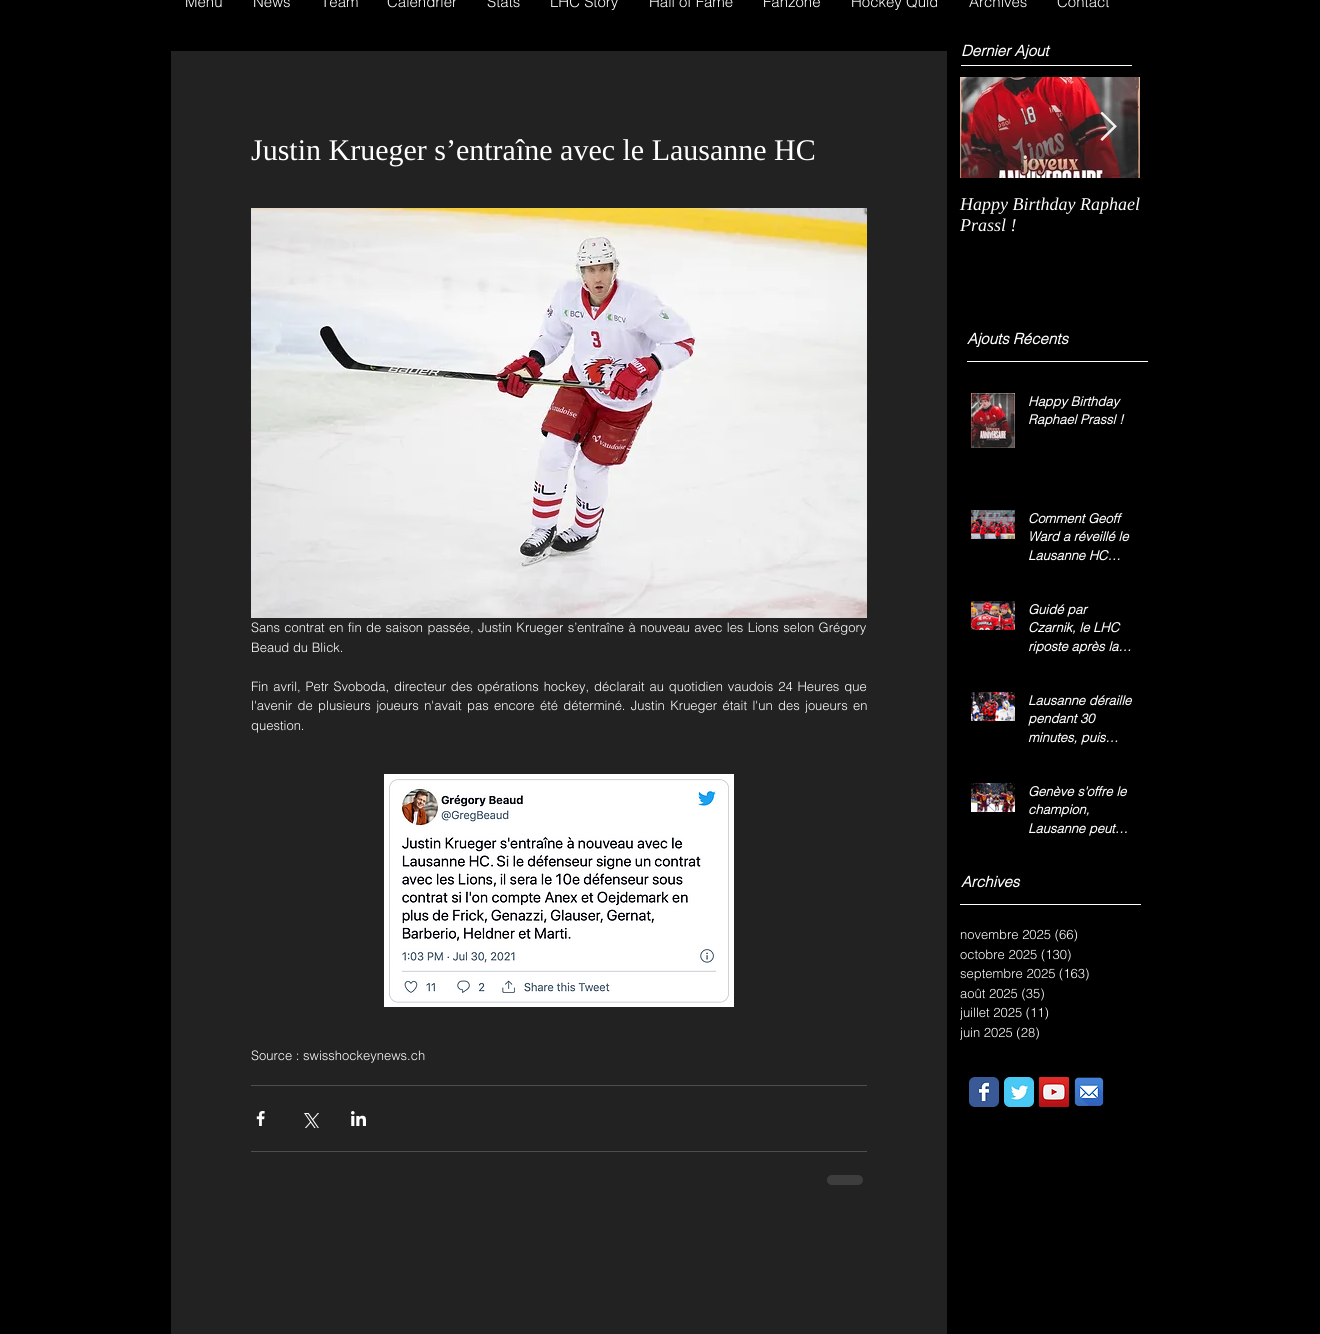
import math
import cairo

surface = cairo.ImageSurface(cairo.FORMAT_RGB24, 1320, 1334)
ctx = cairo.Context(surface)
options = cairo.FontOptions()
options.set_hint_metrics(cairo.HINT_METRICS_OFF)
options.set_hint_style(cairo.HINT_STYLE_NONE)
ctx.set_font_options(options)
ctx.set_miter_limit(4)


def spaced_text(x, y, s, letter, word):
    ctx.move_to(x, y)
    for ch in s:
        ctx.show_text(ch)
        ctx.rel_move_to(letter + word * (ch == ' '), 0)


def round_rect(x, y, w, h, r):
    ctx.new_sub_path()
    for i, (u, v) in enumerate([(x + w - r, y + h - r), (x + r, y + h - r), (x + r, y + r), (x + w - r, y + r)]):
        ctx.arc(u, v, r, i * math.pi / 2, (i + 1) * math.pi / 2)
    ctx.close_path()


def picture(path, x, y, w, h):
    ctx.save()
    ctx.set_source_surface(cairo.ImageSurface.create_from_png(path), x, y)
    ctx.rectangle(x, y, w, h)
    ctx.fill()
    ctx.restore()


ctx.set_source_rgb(0, 0, 0)
ctx.paint()
ctx.select_font_face("helvetica Light")
ctx.set_font_size(15)
ctx.set_source_rgb(1, 1, 1)
ctx.move_to(185, 7)
ctx.show_text("Menu")
ctx.move_to(253, 7)
ctx.show_text("News")
ctx.move_to(321, 7)
ctx.show_text("Team")
ctx.move_to(387, 7)
ctx.show_text("Calendrier")
ctx.move_to(487, 7)
ctx.show_text("Stats")
ctx.move_to(550, 7)
ctx.show_text("LHC Story")
ctx.move_to(649, 7)
ctx.show_text("Hall of Fame")
ctx.move_to(763, 7)
ctx.show_text("Fanzone")
ctx.move_to(851, 7)
ctx.show_text("Hockey Quid")
ctx.move_to(969, 7)
ctx.show_text("Archives")
ctx.move_to(1057, 7)
ctx.show_text("Contact")
ctx.select_font_face("helvetica", cairo.FONT_SLANT_ITALIC, cairo.FONT_WEIGHT_BOLD)
ctx.move_to(961, 56)
ctx.show_text("Dernier Ajout")
ctx.rectangle(961, 65, 171, 1)
ctx.fill()
ctx.set_source_rgb(0.133, 0.133, 0.133)
ctx.rectangle(171, 51, 776, 1283)
ctx.fill()
ctx.select_font_face("Liberation Serif")
ctx.set_font_size(30)
ctx.set_source_rgb(1, 1, 1)
ctx.move_to(251, 160)
ctx.show_text("Justin Krueger s’entraîne avec le Lausanne HC")
picture("img1.png", 251, 208, 616, 410)
ctx.select_font_face("helvetica Light")
ctx.set_font_size(13)
spaced_text(251, 632, "Sans contrat en fin de saison passée, Justin Krueger s’entraîne à nouveau avec les Lions selon Grégory", 0, 0.75)
ctx.move_to(251, 652)
ctx.show_text("Beaud du Blick.")
spaced_text(251, 691, "Fin avril, Petr Svoboda, directeur des opérations hockey, déclarait au quotidien vaudois 24 Heures que", 0, 1.25)
spaced_text(251, 710, "l'avenir de plusieurs joueurs n'avait pas encore été déterminé. Justin Krueger était l'un des joueurs en", 0, 1.75)
ctx.move_to(251, 730)
ctx.show_text("question.")
picture("img2.png", 384, 774, 350, 233)
ctx.move_to(251, 1060)
ctx.show_text("Source : swisshockeynews.ch")
ctx.set_source_rgb(0.306, 0.306, 0.306)
ctx.rectangle(251, 1085, 616, 1)
ctx.fill()
picture("img3.png", 256, 1111, 9, 15)
picture("img4.png", 304, 1113, 15, 15)
picture("img5.png", 351, 1111, 15, 15)
ctx.rectangle(251, 1151, 616, 1)
ctx.fill()
ctx.set_source_rgb(0.239, 0.239, 0.239)
round_rect(827, 1175, 36, 10, 5)
ctx.fill()
picture("img7.png", 960, 77, 180, 101)
picture("img6.png", 1100, 112, 17, 29)
ctx.select_font_face("Liberation Serif", cairo.FONT_SLANT_ITALIC)
ctx.set_font_size(18)
ctx.set_source_rgb(1, 1, 1)
ctx.move_to(960, 210)
ctx.show_text("Happy Birthday Raphael")
ctx.move_to(960, 231)
ctx.show_text("Prassl !")
ctx.select_font_face("helvetica", cairo.FONT_SLANT_ITALIC, cairo.FONT_WEIGHT_BOLD)
ctx.set_font_size(15)
ctx.move_to(967, 344)
ctx.show_text("Ajouts Récents")
ctx.rectangle(967, 361, 181, 1)
ctx.fill()
picture("img8.png", 971, 393, 44, 55)
ctx.set_font_size(13)
ctx.move_to(1028, 406)
ctx.show_text("Happy Birthday")
ctx.move_to(1028, 424)
ctx.show_text("Raphael Prassl !")
picture("img9.png", 971, 510, 44, 29)
ctx.move_to(1028, 523)
ctx.show_text("Comment Geoff")
ctx.move_to(1028, 541)
ctx.show_text("Ward a réveillé le")
ctx.move_to(1028, 560)
ctx.show_text("Lausanne HC…")
picture("img10.png", 971, 601, 44, 29)
ctx.move_to(1028, 614)
ctx.show_text("Guidé par")
ctx.move_to(1028, 632)
ctx.show_text("Czarnik, le LHC")
ctx.move_to(1028, 651)
ctx.show_text("riposte après la…")
picture("img11.png", 971, 692, 44, 29)
ctx.move_to(1028, 705)
ctx.show_text("Lausanne déraille")
ctx.move_to(1028, 723)
ctx.show_text("pendant 30")
ctx.move_to(1028, 742)
ctx.show_text("minutes, puis…")
picture("img12.png", 971, 783, 44, 29)
ctx.move_to(1028, 796)
ctx.show_text("Genève s'offre le")
ctx.move_to(1028, 814)
ctx.show_text("champion,")
ctx.move_to(1028, 833)
ctx.show_text("Lausanne peut…")
ctx.set_font_size(15)
ctx.move_to(961, 887)
ctx.show_text("Archives")
ctx.rectangle(960, 904, 181, 1)
ctx.fill()
ctx.select_font_face("helvetica Light")
ctx.set_font_size(13)
ctx.move_to(960, 939)
ctx.show_text("novembre 2025 (66)")
ctx.move_to(960, 959)
ctx.show_text("octobre 2025 (130)")
ctx.move_to(960, 978)
ctx.show_text("septembre 2025 (163)")
ctx.move_to(960, 998)
ctx.show_text("août 2025 (35)")
ctx.move_to(960, 1017)
ctx.show_text("juillet 2025 (11)")
ctx.move_to(960, 1037)
ctx.show_text("juin 2025 (28)")
picture("img13.png", 969, 1077, 30, 30)
picture("img14.png", 1004, 1077, 30, 30)
picture("img15.png", 1039, 1077, 30, 30)
picture("img16.png", 1074, 1077, 30, 29)
surface.write_to_png("page.png")
